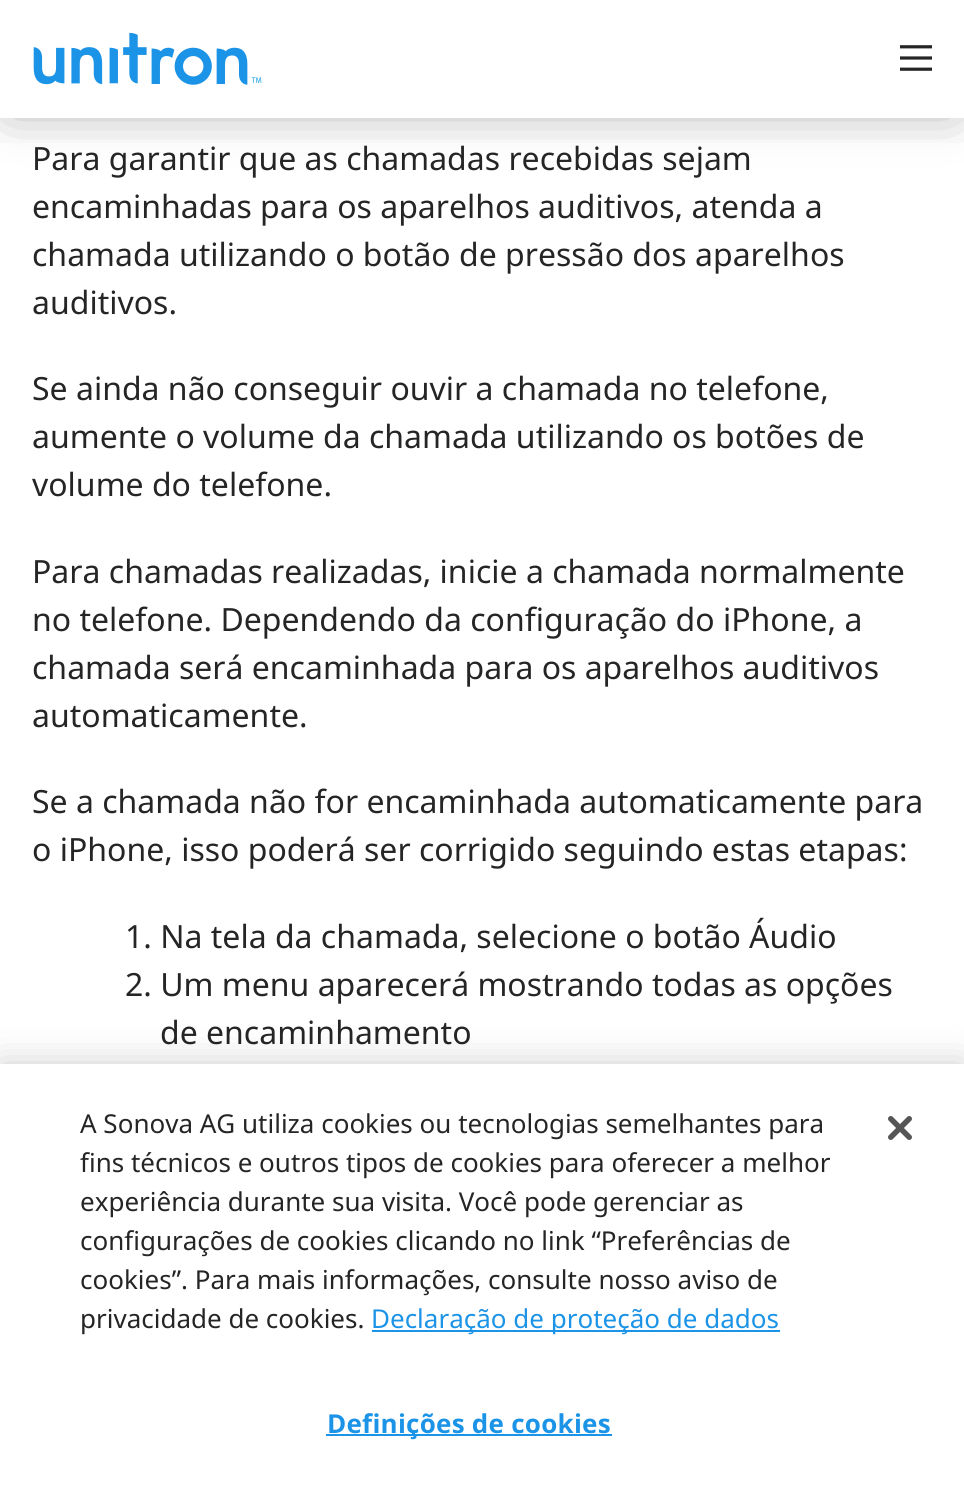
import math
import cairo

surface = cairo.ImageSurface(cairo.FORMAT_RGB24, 964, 1495)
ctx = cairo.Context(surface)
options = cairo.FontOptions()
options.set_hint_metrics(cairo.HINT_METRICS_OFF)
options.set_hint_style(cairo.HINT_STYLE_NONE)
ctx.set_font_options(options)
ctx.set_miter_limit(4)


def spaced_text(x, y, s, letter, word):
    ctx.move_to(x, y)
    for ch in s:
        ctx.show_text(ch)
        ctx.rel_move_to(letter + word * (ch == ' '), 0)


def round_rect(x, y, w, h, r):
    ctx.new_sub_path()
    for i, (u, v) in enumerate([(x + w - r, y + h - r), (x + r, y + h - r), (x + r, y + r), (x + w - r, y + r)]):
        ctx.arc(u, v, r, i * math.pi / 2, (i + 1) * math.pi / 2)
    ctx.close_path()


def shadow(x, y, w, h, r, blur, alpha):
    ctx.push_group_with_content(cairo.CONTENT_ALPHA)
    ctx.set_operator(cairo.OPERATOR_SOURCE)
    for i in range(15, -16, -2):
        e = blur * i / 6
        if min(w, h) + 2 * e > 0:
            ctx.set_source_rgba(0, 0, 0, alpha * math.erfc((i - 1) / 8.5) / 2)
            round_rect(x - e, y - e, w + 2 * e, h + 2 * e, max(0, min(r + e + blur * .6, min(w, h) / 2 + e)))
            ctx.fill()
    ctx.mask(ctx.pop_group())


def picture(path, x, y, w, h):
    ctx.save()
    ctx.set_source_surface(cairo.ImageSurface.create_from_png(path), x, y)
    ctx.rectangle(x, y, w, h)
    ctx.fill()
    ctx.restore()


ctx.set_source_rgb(1, 1, 1)
ctx.paint()
ctx.set_source_rgb(0, 0, 0)
shadow(10, 10, 944, 98, 0, 27, 0.2)
ctx.set_source_rgb(1, 1, 1)
ctx.rectangle(0, 0, 964, 118)
ctx.fill()
ctx.save()
ctx.rectangle(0, 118, 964, 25)
ctx.clip()
ctx.set_source_rgb(0, 0, 0)
shadow(10, 10, 944, 98, 0, 27, 0.2)
ctx.restore()
picture("img1.png", 33, 32, 229, 53)
picture("img2.png", 900, 45, 32, 26)
ctx.select_font_face("Noto Sans")
ctx.set_font_size(32)
ctx.set_source_rgb(0.145, 0.145, 0.145)
ctx.move_to(32, 170)
ctx.show_text("Para garantir que as chamadas recebidas sejam")
ctx.move_to(32, 218)
ctx.show_text("encaminhadas para os aparelhos auditivos, atenda a")
ctx.move_to(32, 266)
ctx.show_text("chamada utilizando o botão de pressão dos aparelhos")
ctx.move_to(32, 314)
ctx.show_text("auditivos.")
ctx.move_to(32, 400)
ctx.show_text("Se ainda não conseguir ouvir a chamada no telefone,")
ctx.move_to(32, 448)
ctx.show_text("aumente o volume da chamada utilizando os botões de")
ctx.move_to(32, 496)
ctx.show_text("volume do telefone.")
ctx.move_to(32, 583)
ctx.show_text("Para chamadas realizadas, inicie a chamada normalmente")
ctx.move_to(32, 631)
ctx.show_text("no telefone. Dependendo da configuração do iPhone, a")
ctx.move_to(32, 679)
ctx.show_text("chamada será encaminhada para os aparelhos auditivos")
ctx.move_to(32, 727)
ctx.show_text("automaticamente.")
ctx.move_to(32, 813)
ctx.show_text("Se a chamada não for encaminhada automaticamente para")
ctx.move_to(32, 861)
ctx.show_text("o iPhone, isso poderá ser corrigido seguindo estas etapas:")
ctx.move_to(125, 948)
ctx.show_text("1. Na tela da chamada, selecione o botão Áudio")
ctx.move_to(125, 996)
ctx.show_text("2. Um menu aparecerá mostrando todas as opções")
ctx.move_to(160, 1044)
ctx.show_text("de encaminhamento")
ctx.set_source_rgb(0, 0, 0)
shadow(0, 1064, 964, 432, 0, 18, 0.2)
ctx.set_source_rgb(1, 1, 1)
ctx.rectangle(0, 1064, 964, 431)
ctx.fill()
ctx.set_font_size(26)
ctx.set_source_rgb(0.145, 0.145, 0.145)
ctx.move_to(80, 1133)
ctx.show_text("A Sonova AG utiliza cookies ou tecnologias semelhantes para")
ctx.move_to(80, 1172)
ctx.show_text("fins técnicos e outros tipos de cookies para oferecer a melhor")
ctx.move_to(80, 1211)
ctx.show_text("experiência durante sua visita. Você pode gerenciar as")
ctx.move_to(80, 1250)
ctx.show_text("configurações de cookies clicando no link “Preferências de")
ctx.move_to(80, 1289)
ctx.show_text("cookies”. Para mais informações, consulte nosso aviso de")
ctx.move_to(80, 1328)
ctx.show_text("privacidade de cookies.")
ctx.set_source_rgb(0.106, 0.576, 0.902)
ctx.rectangle(372, 1330, 408, 2)
ctx.fill()
ctx.move_to(371, 1328)
ctx.show_text("Declaração de proteção de dados")
ctx.rectangle(326, 1434, 286, 2)
ctx.fill()
ctx.select_font_face("Noto Sans", cairo.FONT_SLANT_NORMAL, cairo.FONT_WEIGHT_BOLD)
spaced_text(327, 1433, "Definições de cookies", 0.25, 0)
picture("img3.png", 888, 1116, 24, 24)
surface.write_to_png("page.png")
